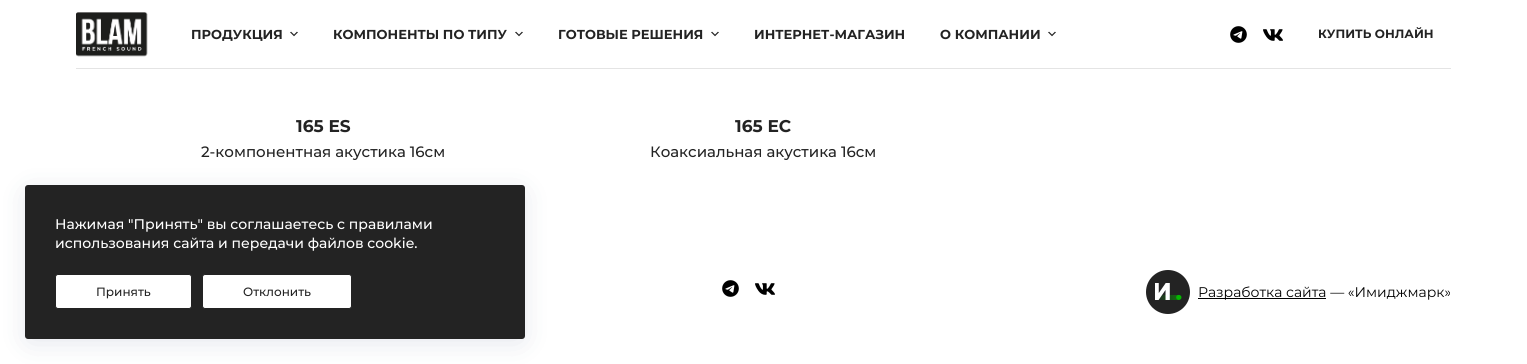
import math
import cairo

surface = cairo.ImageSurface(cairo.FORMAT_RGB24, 1527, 364)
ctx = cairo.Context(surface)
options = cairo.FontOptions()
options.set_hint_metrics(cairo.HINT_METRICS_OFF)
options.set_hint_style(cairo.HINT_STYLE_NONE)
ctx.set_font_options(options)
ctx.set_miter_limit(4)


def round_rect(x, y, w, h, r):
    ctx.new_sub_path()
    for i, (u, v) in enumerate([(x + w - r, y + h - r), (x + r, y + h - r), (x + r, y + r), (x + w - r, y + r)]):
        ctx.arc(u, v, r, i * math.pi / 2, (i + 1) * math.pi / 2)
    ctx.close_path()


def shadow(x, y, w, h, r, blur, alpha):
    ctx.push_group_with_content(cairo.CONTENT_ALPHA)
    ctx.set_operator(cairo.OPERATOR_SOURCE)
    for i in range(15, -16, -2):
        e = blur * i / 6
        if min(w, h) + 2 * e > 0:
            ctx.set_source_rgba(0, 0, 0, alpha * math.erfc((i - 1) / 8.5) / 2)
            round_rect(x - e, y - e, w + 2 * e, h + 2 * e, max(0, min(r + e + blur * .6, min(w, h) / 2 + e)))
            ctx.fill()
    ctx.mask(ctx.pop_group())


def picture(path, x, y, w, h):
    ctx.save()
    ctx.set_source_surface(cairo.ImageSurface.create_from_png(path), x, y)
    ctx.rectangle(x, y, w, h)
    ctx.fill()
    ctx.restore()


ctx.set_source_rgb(1, 1, 1)
ctx.paint()
ctx.set_source_rgb(0.894, 0.894, 0.894)
ctx.rectangle(76, 68, 1375, 1)
ctx.fill()
picture("img1.png", 76, 12, 72, 45)
ctx.select_font_face("Montserrat", cairo.FONT_SLANT_NORMAL, cairo.FONT_WEIGHT_BOLD)
ctx.set_font_size(13)
ctx.set_source_rgb(0.137, 0.137, 0.137)
ctx.move_to(191, 39)
ctx.show_text("ПРОДУКЦИЯ")
picture("img2.png", 290, 31, 8, 6)
ctx.move_to(333, 39)
ctx.show_text("КОМПОНЕНТЫ ПО ТИПУ")
picture("img2.png", 515, 31, 8, 6)
ctx.move_to(558, 39)
ctx.show_text("ГОТОВЫЕ РЕШЕНИЯ")
picture("img2.png", 711, 31, 8, 6)
ctx.move_to(754, 39)
ctx.show_text("ИНТЕРНЕТ-МАГАЗИН")
ctx.move_to(940, 39)
ctx.show_text("О КОМПАНИИ")
picture("img2.png", 1048, 31, 8, 6)
picture("img3.png", 1230, 26, 17, 17)
picture("img4.png", 1263, 29, 20, 12)
ctx.set_font_size(12)
ctx.move_to(1318, 38)
ctx.show_text("КУПИТЬ ОНЛАЙН")
ctx.set_font_size(17)
ctx.move_to(296, 132)
ctx.show_text("165 ES")
ctx.select_font_face("Montserrat Medium")
ctx.set_font_size(15)
ctx.move_to(201, 157)
ctx.show_text("2-компонентная акустика 16см")
ctx.select_font_face("Montserrat", cairo.FONT_SLANT_NORMAL, cairo.FONT_WEIGHT_BOLD)
ctx.set_font_size(17)
ctx.move_to(735, 132)
ctx.show_text("165 EC")
ctx.select_font_face("Montserrat Medium")
ctx.set_font_size(15)
ctx.move_to(650, 157)
ctx.show_text("Коаксиальная акустика 16см")
picture("img3.png", 722, 280, 17, 17)
picture("img4.png", 755, 283, 20, 12)
ctx.arc(1168, 292, 22, 0, 2 * math.pi)
ctx.fill()
picture("img5.png", 1155, 283, 27, 17)
ctx.set_source_rgb(0, 0, 0)
ctx.rectangle(1198, 298, 128, 1)
ctx.fill()
ctx.select_font_face("Montserrat")
ctx.set_font_size(14)
ctx.move_to(1198, 297)
ctx.show_text("Разработка сайта — «Имиджмарк»")
ctx.set_source_rgb(0.133, 0.22, 0.396)
shadow(30, 195, 490, 144, 0, 15, 0.15)
ctx.set_source_rgb(0.137, 0.137, 0.137)
round_rect(25, 185, 500, 154, 3)
ctx.fill()
ctx.select_font_face("Montserrat Medium")
ctx.set_source_rgb(1, 1, 1)
ctx.move_to(55, 229)
ctx.show_text("Нажимая \"Принять\" вы соглашаетесь с правилами")
ctx.move_to(55, 248)
ctx.show_text("использования сайта и передачи файлов cookie.")
round_rect(55.5, 274.5, 136, 34, 2.5)
ctx.fill_preserve()
ctx.set_source_rgb(0.137, 0.137, 0.137)
ctx.set_line_width(1)
ctx.stroke()
ctx.set_font_size(12)
ctx.move_to(96, 296)
ctx.show_text("Принять")
ctx.set_source_rgb(1, 1, 1)
round_rect(202.5, 274.5, 149, 34, 2.5)
ctx.fill_preserve()
ctx.set_source_rgb(0.137, 0.137, 0.137)
ctx.stroke()
ctx.move_to(243, 296)
ctx.show_text("Отклонить")
surface.write_to_png("page.png")
